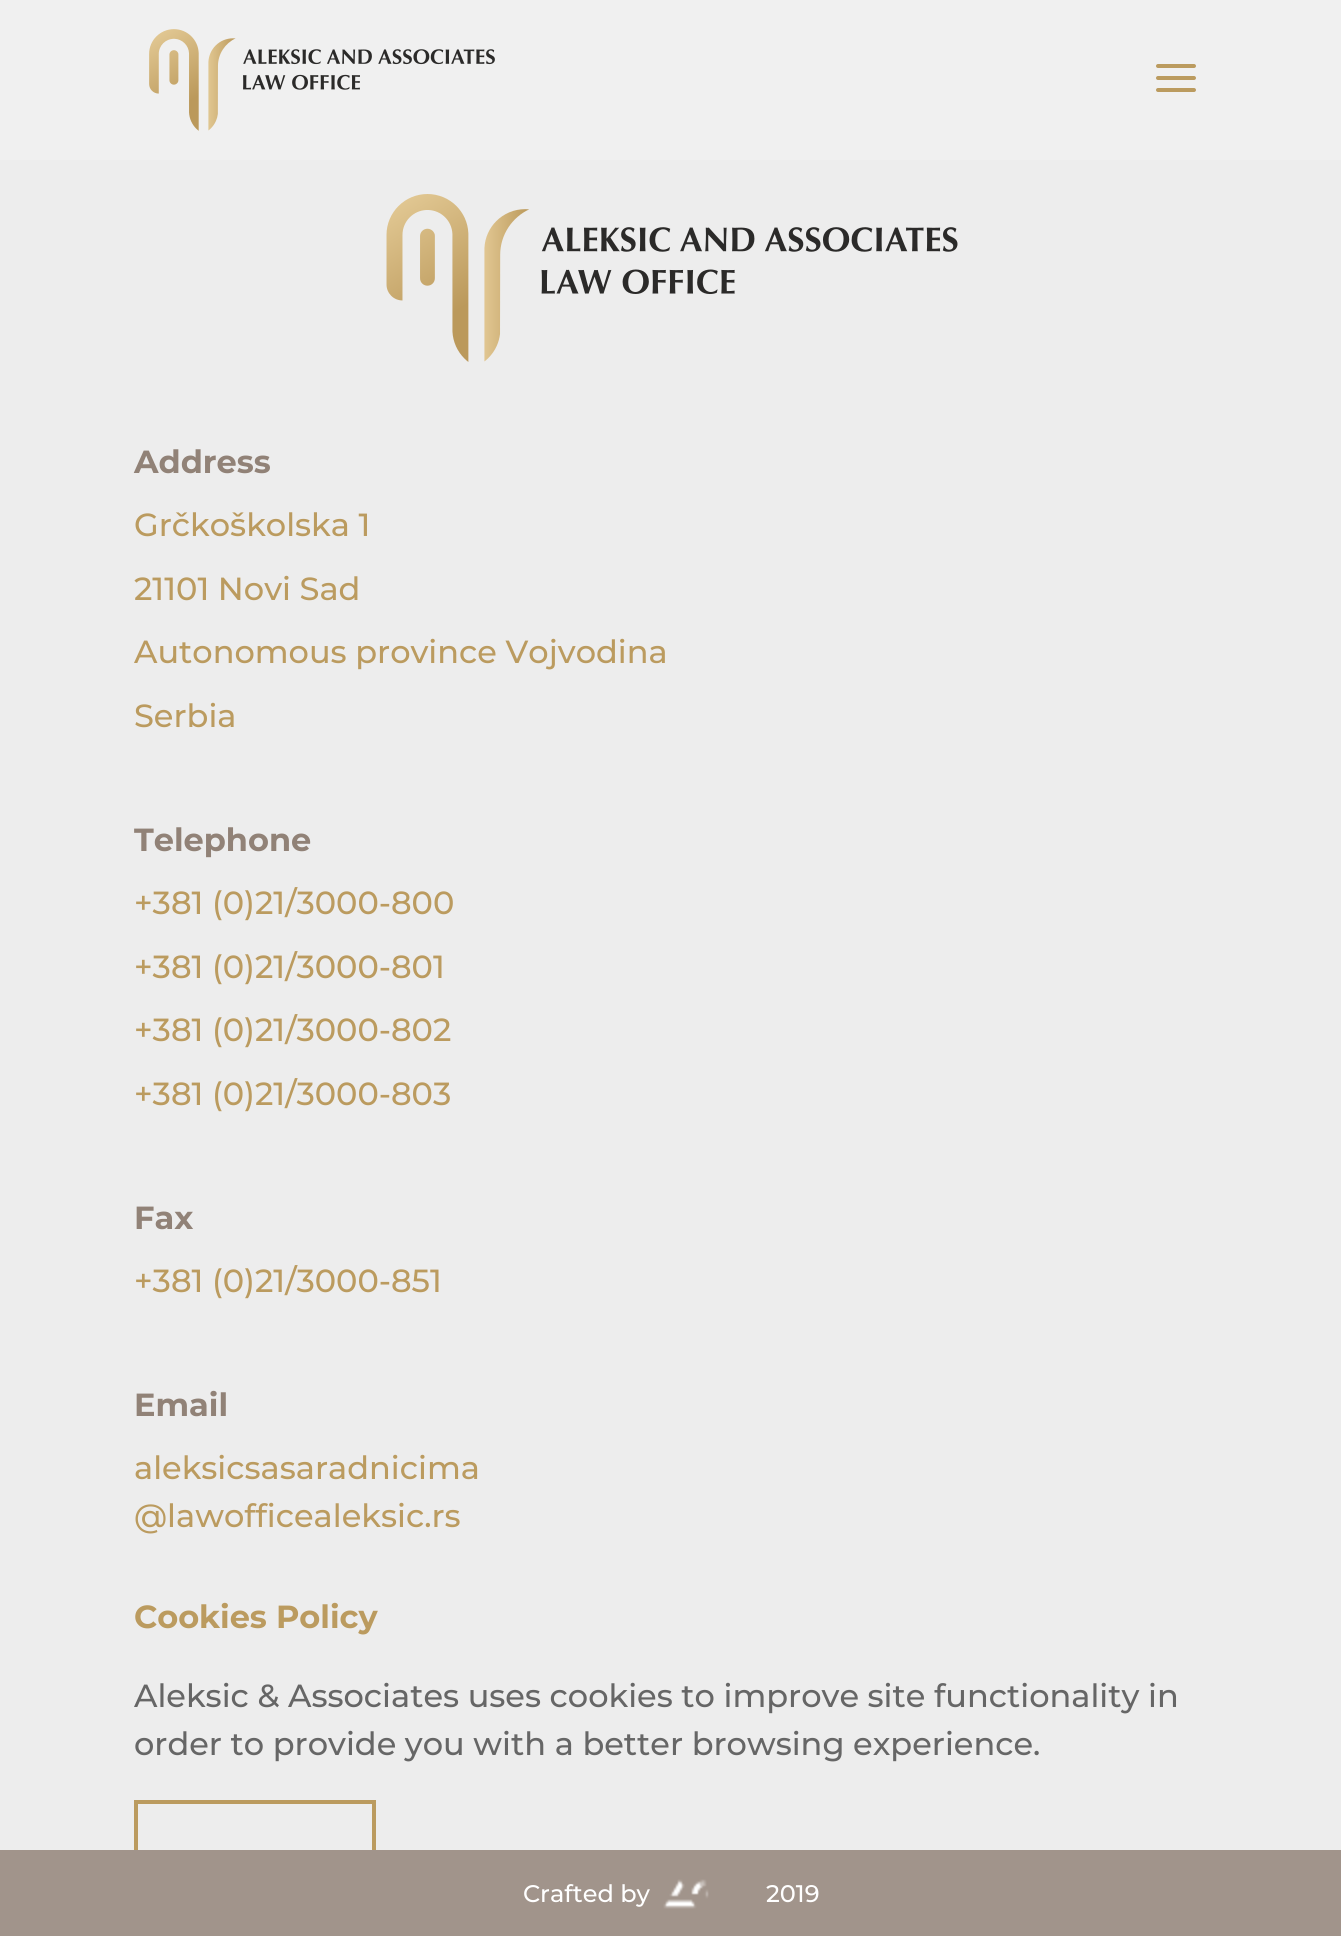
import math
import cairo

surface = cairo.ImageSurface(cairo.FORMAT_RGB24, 1341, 1936)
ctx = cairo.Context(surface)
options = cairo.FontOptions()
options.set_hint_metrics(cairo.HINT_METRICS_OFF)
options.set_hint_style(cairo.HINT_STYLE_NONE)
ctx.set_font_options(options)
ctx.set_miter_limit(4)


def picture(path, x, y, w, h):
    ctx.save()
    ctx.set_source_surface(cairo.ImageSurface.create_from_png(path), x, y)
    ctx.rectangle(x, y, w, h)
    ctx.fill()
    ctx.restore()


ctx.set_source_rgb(0.929, 0.929, 0.929)
ctx.paint()
ctx.set_source_rgb(0.941, 0.941, 0.941)
ctx.rectangle(0, 0, 1341, 160)
ctx.fill()
picture("img1.png", 149, 29, 346, 102)
picture("img2.png", 1156, 64, 40, 28)
picture("img3.png", 386, 194, 572, 168)
ctx.select_font_face("Montserrat", cairo.FONT_SLANT_NORMAL, cairo.FONT_WEIGHT_BOLD)
ctx.set_font_size(32)
ctx.set_source_rgb(0.569, 0.51, 0.467)
ctx.move_to(134, 473)
ctx.show_text("Address")
ctx.select_font_face("Montserrat Medium")
ctx.set_source_rgb(0.733, 0.608, 0.373)
ctx.move_to(134, 536)
ctx.show_text("Grčkoškolska 1")
ctx.move_to(134, 600)
ctx.show_text("21101 Novi Sad")
ctx.move_to(134, 663)
ctx.show_text("Autonomous province Vojvodina")
ctx.move_to(134, 727)
ctx.show_text("Serbia")
ctx.select_font_face("Montserrat", cairo.FONT_SLANT_NORMAL, cairo.FONT_WEIGHT_BOLD)
ctx.set_source_rgb(0.569, 0.51, 0.467)
ctx.move_to(134, 851)
ctx.show_text("Telephone")
ctx.select_font_face("Montserrat Medium")
ctx.set_source_rgb(0.733, 0.608, 0.373)
ctx.move_to(134, 914)
ctx.show_text("+381 (0)21/3000-800")
ctx.move_to(134, 978)
ctx.show_text("+381 (0)21/3000-801")
ctx.move_to(134, 1041)
ctx.show_text("+381 (0)21/3000-802")
ctx.move_to(134, 1105)
ctx.show_text("+381 (0)21/3000-803")
ctx.select_font_face("Montserrat", cairo.FONT_SLANT_NORMAL, cairo.FONT_WEIGHT_BOLD)
ctx.set_source_rgb(0.569, 0.51, 0.467)
ctx.move_to(134, 1229)
ctx.show_text("Fax")
ctx.select_font_face("Montserrat Medium")
ctx.set_source_rgb(0.733, 0.608, 0.373)
ctx.move_to(134, 1292)
ctx.show_text("+381 (0)21/3000-851")
ctx.select_font_face("Montserrat", cairo.FONT_SLANT_NORMAL, cairo.FONT_WEIGHT_BOLD)
ctx.set_source_rgb(0.569, 0.51, 0.467)
ctx.move_to(134, 1416)
ctx.show_text("Email")
ctx.select_font_face("Montserrat Medium")
ctx.set_source_rgb(0.733, 0.608, 0.373)
ctx.move_to(134, 1479)
ctx.show_text("aleksicsasaradnicima")
ctx.move_to(134, 1527)
ctx.show_text("@lawofficealeksic.rs")
ctx.rectangle(136, 1802, 238, 92)
ctx.set_line_width(4)
ctx.stroke()
ctx.set_source_rgb(0.631, 0.58, 0.545)
ctx.rectangle(0, 1850, 1341, 86)
ctx.fill()
ctx.set_font_size(24)
ctx.set_source_rgb(1, 1, 1)
ctx.move_to(523, 1902)
ctx.show_text("Crafted by")
picture("img4.png", 663, 1879, 46, 30)
ctx.move_to(766, 1902)
ctx.show_text("2019")
ctx.select_font_face("Montserrat", cairo.FONT_SLANT_NORMAL, cairo.FONT_WEIGHT_BOLD)
ctx.set_font_size(32)
ctx.set_source_rgb(0.733, 0.608, 0.373)
ctx.move_to(134, 1628)
ctx.show_text("Cookies Policy")
ctx.select_font_face("Montserrat Medium")
ctx.set_source_rgb(0.4, 0.4, 0.4)
ctx.move_to(134, 1707)
ctx.show_text("Aleksic & Associates uses cookies to improve site functionality in")
ctx.move_to(134, 1755)
ctx.show_text("order to provide you with a better browsing experience.")
surface.write_to_png("page.png")
